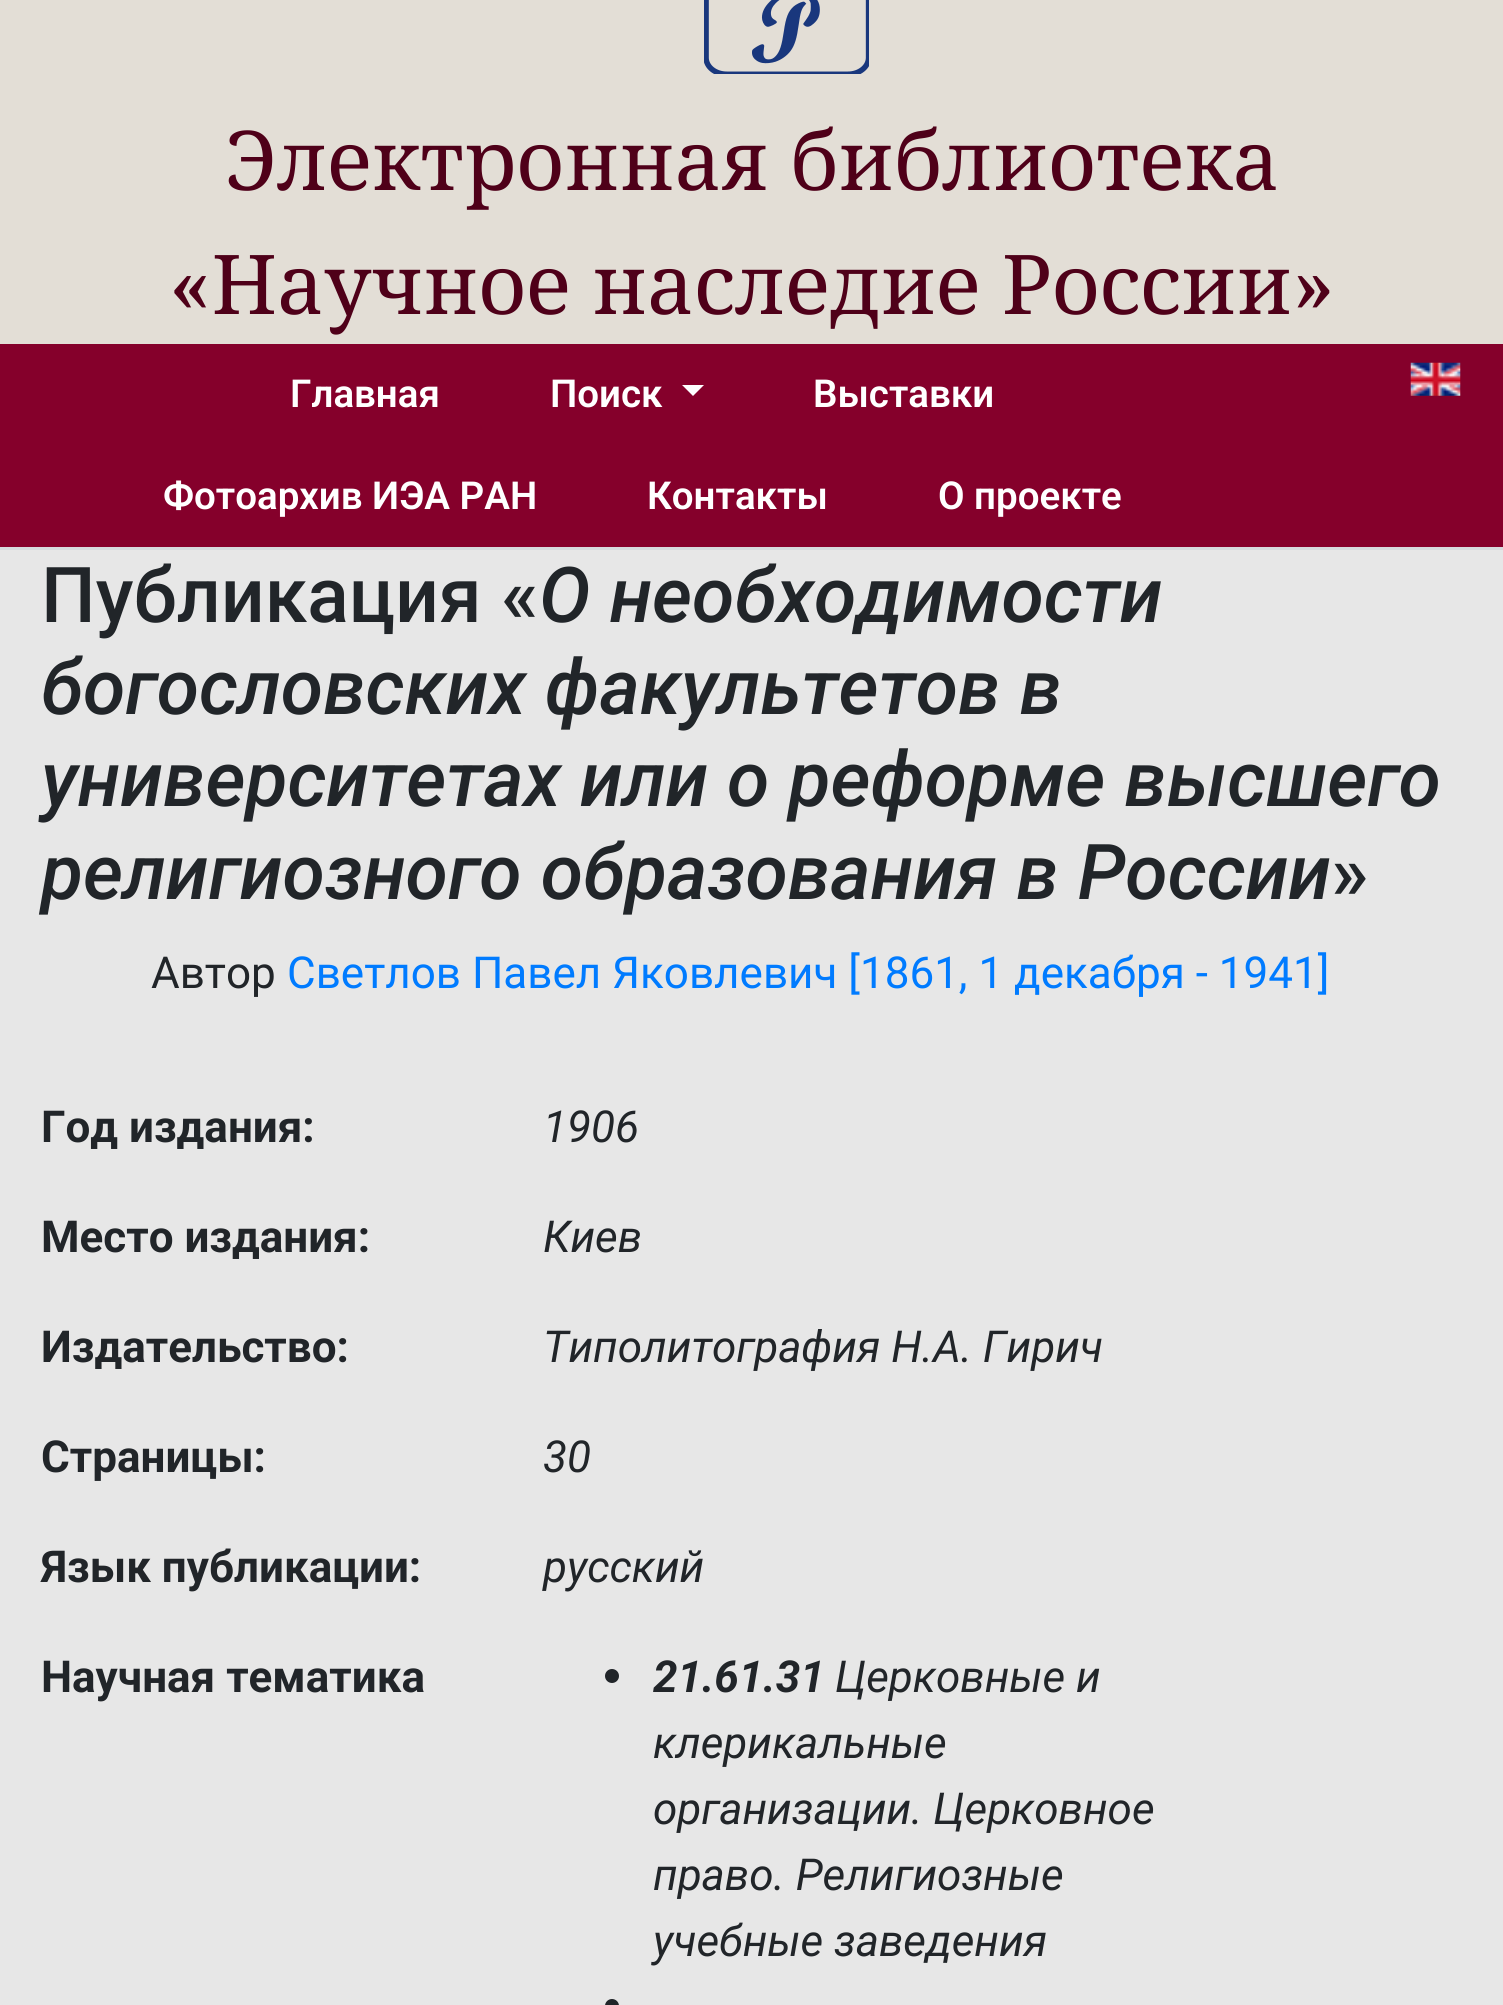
import math
import cairo

surface = cairo.ImageSurface(cairo.FORMAT_RGB24, 1503, 2005)
ctx = cairo.Context(surface)
options = cairo.FontOptions()
options.set_hint_metrics(cairo.HINT_METRICS_OFF)
options.set_hint_style(cairo.HINT_STYLE_NONE)
ctx.set_font_options(options)
ctx.set_miter_limit(4)


def round_rect(x, y, w, h, r):
    ctx.new_sub_path()
    for i, (u, v) in enumerate([(x + w - r, y + h - r), (x + r, y + h - r), (x + r, y + r), (x + w - r, y + r)]):
        ctx.arc(u, v, r, i * math.pi / 2, (i + 1) * math.pi / 2)
    ctx.close_path()


def picture(path, x, y, w, h):
    ctx.save()
    ctx.set_source_surface(cairo.ImageSurface.create_from_png(path), x, y)
    ctx.rectangle(x, y, w, h)
    ctx.fill()
    ctx.restore()


ctx.set_source_rgb(0.906, 0.906, 0.906)
ctx.paint()
ctx.set_source_rgb(0.89, 0.871, 0.839)
ctx.rectangle(0, 0, 1503, 344)
ctx.fill()
picture("img1.png", 704, 0, 165, 74)
ctx.select_font_face("Noto Serif")
ctx.set_font_size(82.5)
ctx.set_source_rgb(0.31, 0, 0.098)
ctx.move_to(225, 190)
ctx.show_text("Электронная библиотека")
ctx.move_to(169, 314)
ctx.show_text("«Научное наследие России»")
ctx.set_source_rgb(0.522, 0, 0.169)
ctx.rectangle(0, 344, 1503, 203)
ctx.fill()
ctx.set_source_rgb(0.843, 0.855, 0.867)
ctx.rectangle(0, 547, 1503, 3)
ctx.fill()
ctx.select_font_face("Roboto SemiBold")
ctx.set_font_size(38.5)
ctx.set_source_rgb(1, 1, 1)
ctx.move_to(290, 407)
ctx.show_text("Главная")
ctx.move_to(550, 407)
ctx.show_text("Поиск")
ctx.new_path()
ctx.move_to(682, 385)
ctx.line_to(704, 385)
ctx.line_to(693, 396)
ctx.close_path()
ctx.fill()
ctx.move_to(813, 407)
ctx.show_text("Выставки")
ctx.move_to(163, 509)
ctx.show_text("Фотоархив ИЭА РАН")
ctx.move_to(647, 509)
ctx.show_text("Контакты")
ctx.move_to(938, 509)
ctx.show_text("О проекте")
picture("img2.png", 1410, 362, 51, 34)
ctx.select_font_face("Roboto Medium")
ctx.set_font_size(77)
ctx.set_source_rgb(0.129, 0.145, 0.161)
ctx.move_to(41, 622)
ctx.show_text("Публикация «")
ctx.select_font_face("Roboto Medium", cairo.FONT_SLANT_ITALIC)
ctx.move_to(539, 622)
ctx.show_text("О необходимости")
ctx.move_to(41, 714)
ctx.show_text("богословских факультетов в")
ctx.move_to(41, 806)
ctx.show_text("университетах или о реформе высшего")
ctx.move_to(41, 899)
ctx.show_text("религиозного образования в России")
ctx.select_font_face("Roboto Medium")
ctx.move_to(1331, 899)
ctx.show_text("»")
ctx.select_font_face("Roboto")
ctx.set_font_size(44)
ctx.move_to(151, 988)
ctx.show_text("Автор")
ctx.set_source_rgb(0, 0.482, 1)
ctx.move_to(287, 988)
ctx.show_text("Светлов Павел Яковлевич [1861, 1 декабря - 1941]")
ctx.select_font_face("Roboto", cairo.FONT_SLANT_NORMAL, cairo.FONT_WEIGHT_BOLD)
ctx.set_source_rgb(0.129, 0.145, 0.161)
ctx.move_to(41, 1142)
ctx.show_text("Год издания:")
ctx.select_font_face("Roboto", cairo.FONT_SLANT_ITALIC)
ctx.move_to(543, 1142)
ctx.show_text("1906")
ctx.select_font_face("Roboto", cairo.FONT_SLANT_NORMAL, cairo.FONT_WEIGHT_BOLD)
ctx.move_to(41, 1252)
ctx.show_text("Место издания:")
ctx.select_font_face("Roboto", cairo.FONT_SLANT_ITALIC)
ctx.move_to(543, 1252)
ctx.show_text("Киев")
ctx.select_font_face("Roboto", cairo.FONT_SLANT_NORMAL, cairo.FONT_WEIGHT_BOLD)
ctx.move_to(41, 1362)
ctx.show_text("Издательство:")
ctx.select_font_face("Roboto", cairo.FONT_SLANT_ITALIC)
ctx.move_to(543, 1362)
ctx.show_text("Типолитография Н.А. Гирич")
ctx.select_font_face("Roboto", cairo.FONT_SLANT_NORMAL, cairo.FONT_WEIGHT_BOLD)
ctx.move_to(41, 1472)
ctx.show_text("Страницы:")
ctx.select_font_face("Roboto", cairo.FONT_SLANT_ITALIC)
ctx.move_to(543, 1472)
ctx.show_text("30")
ctx.select_font_face("Roboto", cairo.FONT_SLANT_NORMAL, cairo.FONT_WEIGHT_BOLD)
ctx.move_to(41, 1582)
ctx.show_text("Язык публикации:")
ctx.select_font_face("Roboto", cairo.FONT_SLANT_ITALIC)
ctx.move_to(543, 1582)
ctx.show_text("русский")
ctx.select_font_face("Roboto", cairo.FONT_SLANT_NORMAL, cairo.FONT_WEIGHT_BOLD)
ctx.move_to(41, 1692)
ctx.show_text("Научная тематика")
ctx.new_path()
ctx.arc(612, 1676, 7, 0, 2 * math.pi)
ctx.fill()
ctx.select_font_face("Roboto", cairo.FONT_SLANT_ITALIC, cairo.FONT_WEIGHT_BOLD)
ctx.move_to(653, 1692)
ctx.show_text("21.61.31")
ctx.select_font_face("Roboto", cairo.FONT_SLANT_ITALIC)
ctx.move_to(835, 1692)
ctx.show_text("Церковные и")
ctx.move_to(653, 1758)
ctx.show_text("клерикальные")
ctx.move_to(653, 1824)
ctx.show_text("организации. Церковное")
ctx.move_to(653, 1890)
ctx.show_text("право. Религиозные")
ctx.move_to(653, 1956)
ctx.show_text("учебные заведения")
round_rect(605, 1999, 14, 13, 7)
ctx.fill()
surface.write_to_png("page.png")
